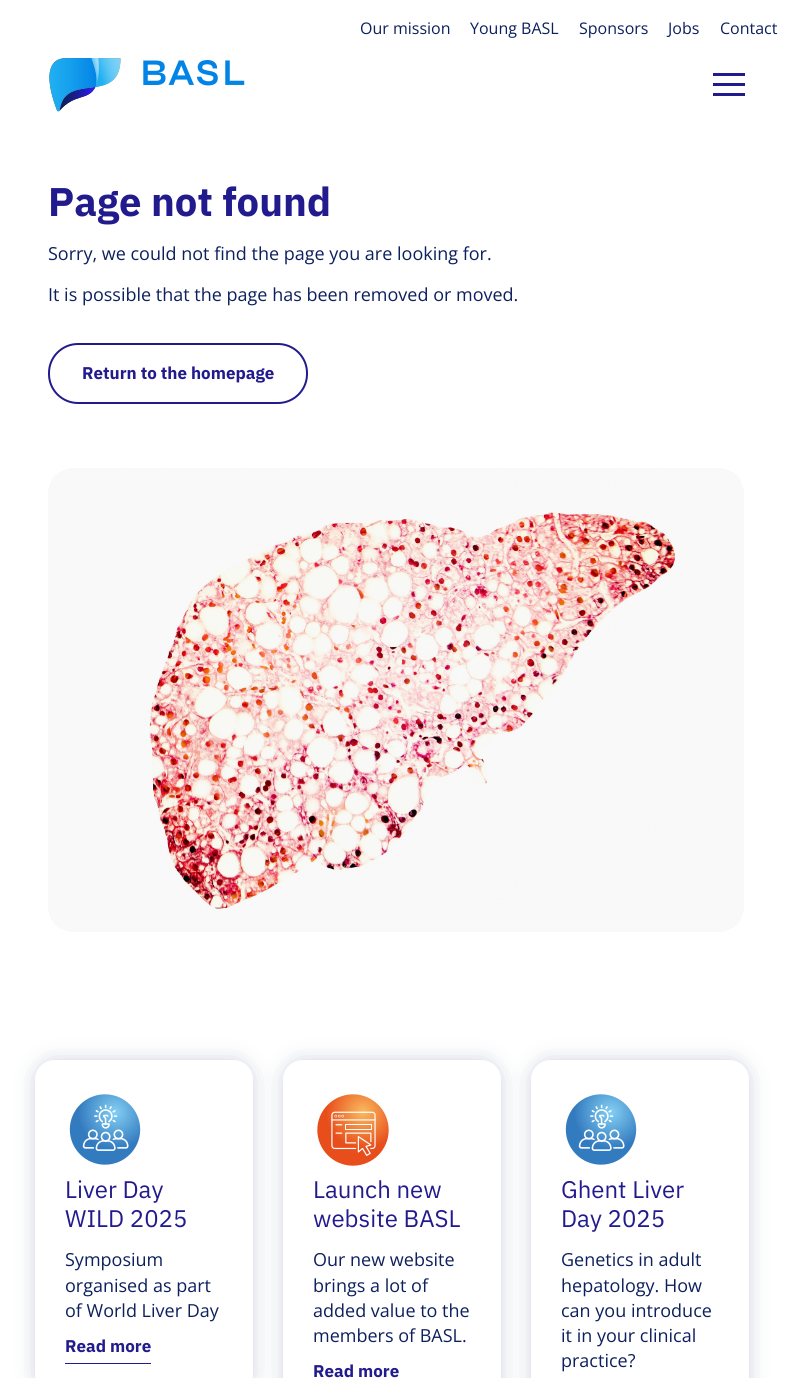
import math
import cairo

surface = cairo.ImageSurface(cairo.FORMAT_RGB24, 792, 1378)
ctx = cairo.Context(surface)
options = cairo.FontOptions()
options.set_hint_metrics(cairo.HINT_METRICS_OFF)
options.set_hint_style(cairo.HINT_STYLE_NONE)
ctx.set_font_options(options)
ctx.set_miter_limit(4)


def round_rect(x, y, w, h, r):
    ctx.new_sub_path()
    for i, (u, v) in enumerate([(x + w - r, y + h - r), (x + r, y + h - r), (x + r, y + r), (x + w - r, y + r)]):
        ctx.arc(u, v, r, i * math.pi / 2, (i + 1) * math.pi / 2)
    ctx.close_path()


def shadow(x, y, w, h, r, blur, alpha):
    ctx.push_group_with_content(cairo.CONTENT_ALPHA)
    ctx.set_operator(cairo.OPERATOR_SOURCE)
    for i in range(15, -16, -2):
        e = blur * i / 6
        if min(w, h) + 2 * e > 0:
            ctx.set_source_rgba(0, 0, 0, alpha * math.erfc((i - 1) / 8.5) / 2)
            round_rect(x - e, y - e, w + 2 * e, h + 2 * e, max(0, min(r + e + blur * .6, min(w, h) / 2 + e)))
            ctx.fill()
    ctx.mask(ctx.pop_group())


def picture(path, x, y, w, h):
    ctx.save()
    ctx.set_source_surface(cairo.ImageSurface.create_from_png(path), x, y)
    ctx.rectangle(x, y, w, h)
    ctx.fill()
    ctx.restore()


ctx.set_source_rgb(1, 1, 1)
ctx.paint()
ctx.select_font_face("Open Sans")
ctx.set_font_size(16)
ctx.set_source_rgb(0.051, 0.125, 0.365)
ctx.move_to(360, 34)
ctx.show_text("Our mission")
ctx.move_to(470, 34)
ctx.show_text("Young BASL")
ctx.move_to(579, 34)
ctx.show_text("Sponsors")
ctx.move_to(668, 34)
ctx.show_text("Jobs")
ctx.move_to(720, 34)
ctx.show_text("Contact")
picture("img1.png", 49, 58, 196, 54)
ctx.set_source_rgb(0.133, 0.106, 0.553)
ctx.rectangle(713, 73, 32, 3)
ctx.fill()
ctx.rectangle(713, 83, 32, 3)
ctx.fill()
ctx.rectangle(713, 93, 32, 3)
ctx.fill()
ctx.select_font_face("IBM Plex Sans", cairo.FONT_SLANT_NORMAL, cairo.FONT_WEIGHT_BOLD)
ctx.set_font_size(40)
ctx.move_to(48, 216)
ctx.show_text("Page not found")
ctx.select_font_face("Open Sans")
ctx.set_font_size(18)
ctx.set_source_rgb(0.051, 0.125, 0.365)
ctx.move_to(48, 260)
ctx.show_text("Sorry, we could not find the page you are looking for.")
ctx.move_to(48, 301)
ctx.show_text("It is possible that the page has been removed or moved.")
round_rect(49, 344, 258, 59, 29)
ctx.set_source_rgb(0.133, 0.106, 0.553)
ctx.stroke()
ctx.select_font_face("IBM Plex Sans", cairo.FONT_SLANT_NORMAL, cairo.FONT_WEIGHT_BOLD)
ctx.set_font_size(17)
ctx.move_to(82, 379)
ctx.show_text("Return to the homepage")
picture("img2.png", 48, 468, 696, 464)
ctx.set_source_rgb(0.051, 0.125, 0.365)
shadow(35, 1060, 218, 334, 20, 10, 0.2)
ctx.set_source_rgb(1, 1, 1)
round_rect(35, 1060, 218, 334, 20)
ctx.fill()
picture("img3.png", 69, 1094, 72, 71)
ctx.select_font_face("IBM Plex Sans")
ctx.set_font_size(24)
ctx.set_source_rgb(0.133, 0.106, 0.553)
ctx.move_to(65, 1198)
ctx.show_text("Liver Day")
ctx.move_to(65, 1227)
ctx.show_text("WILD 2025")
ctx.select_font_face("Open Sans")
ctx.set_font_size(18)
ctx.set_source_rgb(0.051, 0.125, 0.365)
ctx.move_to(65, 1266)
ctx.show_text("Symposium")
ctx.move_to(65, 1292)
ctx.show_text("organised as part")
ctx.move_to(65, 1317)
ctx.show_text("of World Liver Day")
ctx.set_source_rgb(0.133, 0.106, 0.553)
ctx.rectangle(65, 1363, 86, 1)
ctx.fill()
ctx.select_font_face("IBM Plex Sans", cairo.FONT_SLANT_NORMAL, cairo.FONT_WEIGHT_BOLD)
ctx.set_font_size(17)
ctx.move_to(65, 1352)
ctx.show_text("Read more")
ctx.set_source_rgb(0.051, 0.125, 0.365)
shadow(283, 1060, 218, 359, 20, 10, 0.2)
ctx.set_source_rgb(1, 1, 1)
round_rect(283, 1060, 218, 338, 20)
ctx.fill()
picture("img4.png", 317, 1094, 72, 72)
ctx.select_font_face("IBM Plex Sans")
ctx.set_font_size(24)
ctx.set_source_rgb(0.133, 0.106, 0.553)
ctx.move_to(313, 1198)
ctx.show_text("Launch new")
ctx.move_to(313, 1227)
ctx.show_text("website BASL")
ctx.select_font_face("Open Sans")
ctx.set_font_size(18)
ctx.set_source_rgb(0.051, 0.125, 0.365)
ctx.move_to(313, 1266)
ctx.show_text("Our new website")
ctx.move_to(313, 1292)
ctx.show_text("brings a lot of")
ctx.move_to(313, 1317)
ctx.show_text("added value to the")
ctx.move_to(313, 1342)
ctx.show_text("members of BASL.")
ctx.select_font_face("IBM Plex Sans", cairo.FONT_SLANT_NORMAL, cairo.FONT_WEIGHT_BOLD)
ctx.set_font_size(17)
ctx.set_source_rgb(0.133, 0.106, 0.553)
ctx.move_to(313, 1377)
ctx.show_text("Read more")
ctx.set_source_rgb(0.051, 0.125, 0.365)
shadow(531, 1060, 218, 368, 20, 10, 0.2)
ctx.set_source_rgb(1, 1, 1)
round_rect(531, 1060, 218, 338, 20)
ctx.fill()
picture("img3.png", 565, 1094, 72, 71)
ctx.select_font_face("IBM Plex Sans")
ctx.set_font_size(24)
ctx.set_source_rgb(0.133, 0.106, 0.553)
ctx.move_to(561, 1198)
ctx.show_text("Ghent Liver")
ctx.move_to(561, 1227)
ctx.show_text("Day 2025")
ctx.select_font_face("Open Sans")
ctx.set_font_size(18)
ctx.set_source_rgb(0.051, 0.125, 0.365)
ctx.move_to(561, 1266)
ctx.show_text("Genetics in adult")
ctx.move_to(561, 1292)
ctx.show_text("hepatology. How")
ctx.move_to(561, 1317)
ctx.show_text("can you introduce")
ctx.move_to(561, 1342)
ctx.show_text("it in your clinical")
ctx.move_to(561, 1367)
ctx.show_text("practice?")
surface.write_to_png("page.png")
